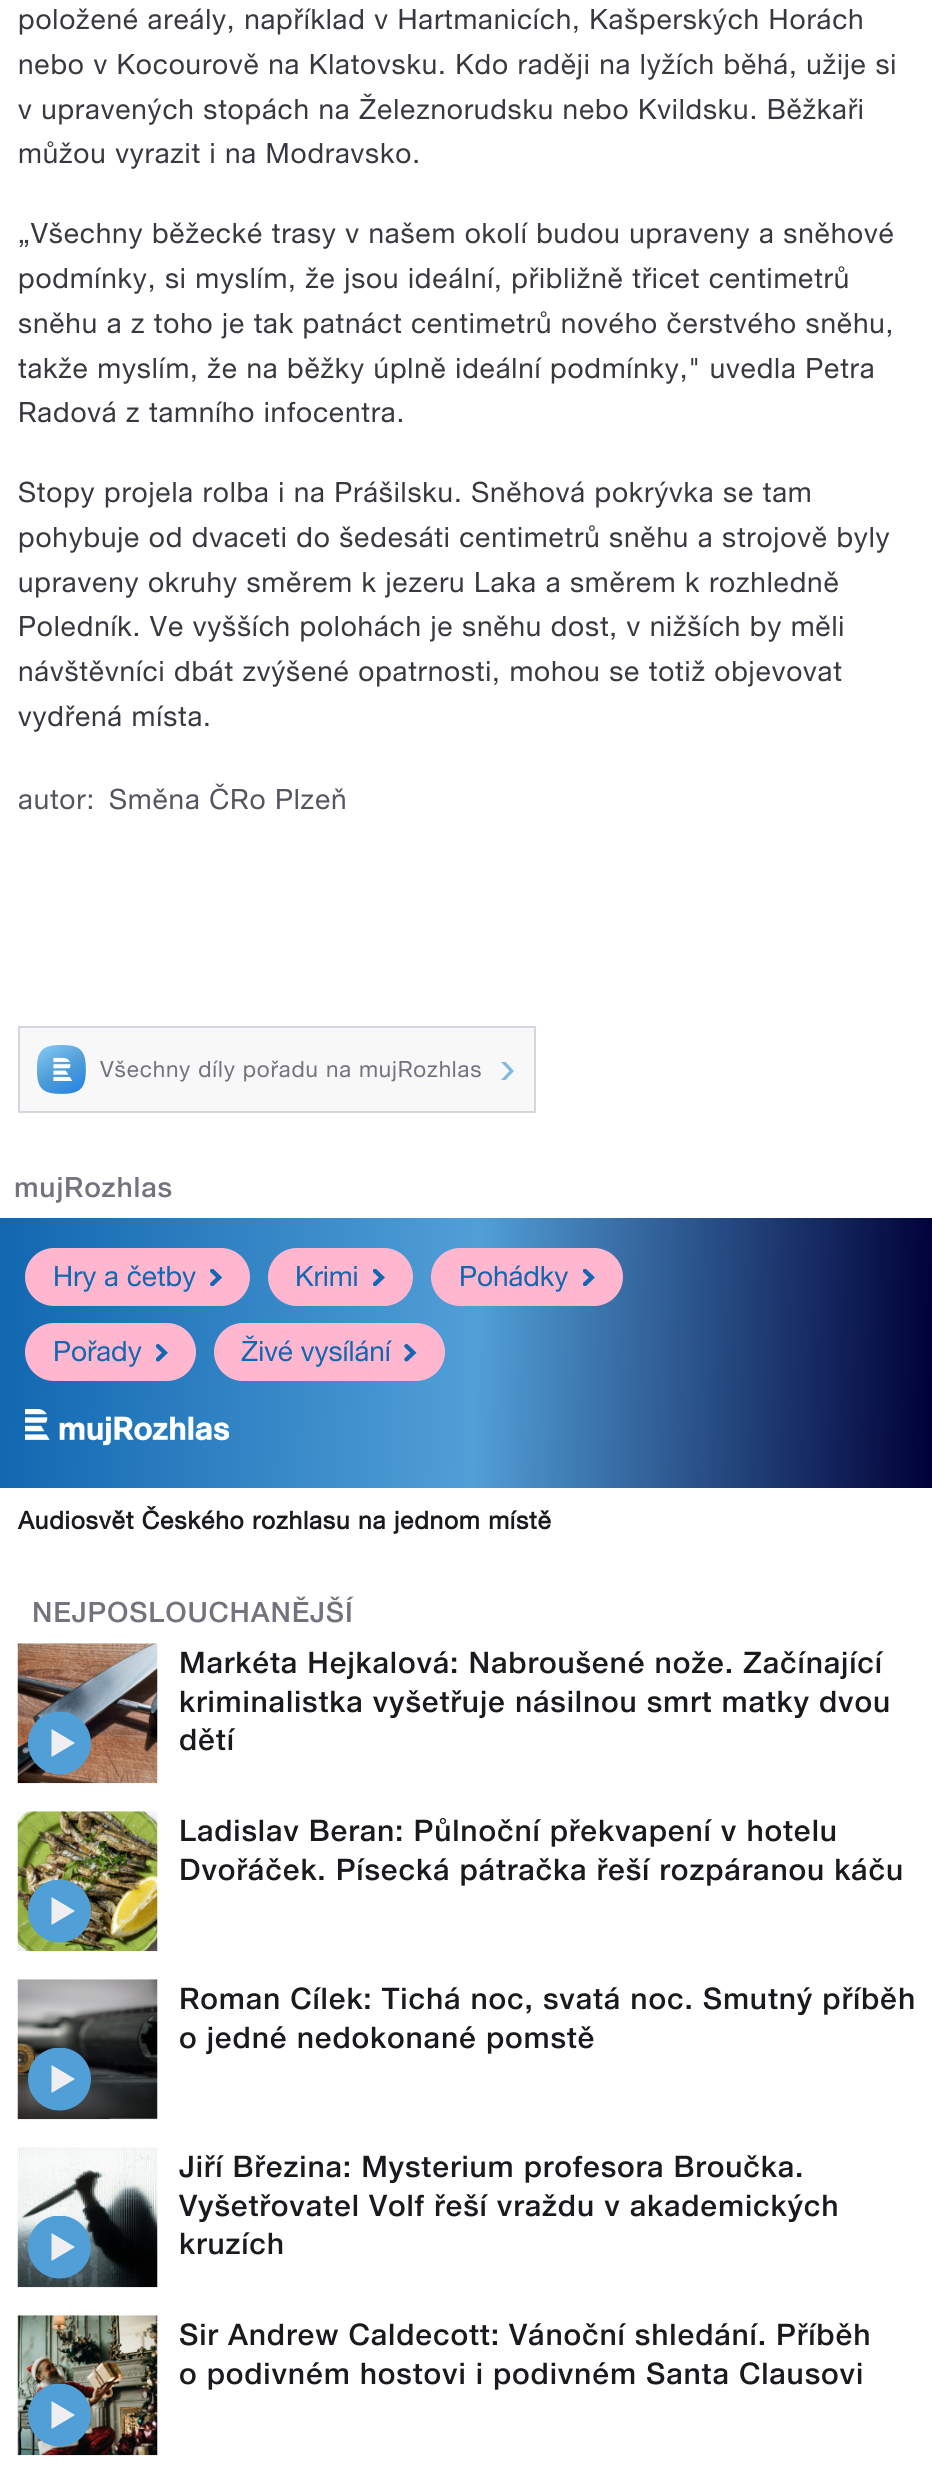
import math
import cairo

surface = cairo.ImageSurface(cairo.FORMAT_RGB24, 932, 2486)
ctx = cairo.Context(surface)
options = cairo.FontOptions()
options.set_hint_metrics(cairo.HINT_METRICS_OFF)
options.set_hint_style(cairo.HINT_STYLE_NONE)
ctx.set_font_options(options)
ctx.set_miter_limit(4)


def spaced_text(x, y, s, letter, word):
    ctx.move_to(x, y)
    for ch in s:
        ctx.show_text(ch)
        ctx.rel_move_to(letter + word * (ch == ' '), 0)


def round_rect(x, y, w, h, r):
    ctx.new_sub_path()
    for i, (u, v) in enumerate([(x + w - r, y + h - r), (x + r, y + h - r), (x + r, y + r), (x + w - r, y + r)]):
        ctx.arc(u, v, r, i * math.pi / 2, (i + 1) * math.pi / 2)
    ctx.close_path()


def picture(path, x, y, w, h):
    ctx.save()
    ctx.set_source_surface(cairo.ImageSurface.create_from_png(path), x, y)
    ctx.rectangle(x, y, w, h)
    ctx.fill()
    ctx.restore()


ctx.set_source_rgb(1, 1, 1)
ctx.paint()
ctx.select_font_face("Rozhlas")
ctx.set_font_size(28)
ctx.set_source_rgb(0.22, 0.22, 0.251)
spaced_text(18, 29, "položené areály, například v Hartmanicích, Kašperských Horách", 0.85, 0)
spaced_text(18, 74, "nebo v Kocourově na Klatovsku. Kdo raději na lyžích běhá, užije si", 0.85, 0)
spaced_text(18, 119, "v upravených stopách na Železnorudsku nebo Kvildsku. Běžkaři", 0.85, 0)
spaced_text(18, 163, "můžou vyrazit i na Modravsko.", 0.85, 0)
spaced_text(18, 243, "„Všechny běžecké trasy v našem okolí budou upraveny a sněhové", 0.85, 0)
spaced_text(18, 288, "podmínky, si myslím, že jsou ideální, přibližně třicet centimetrů", 0.85, 0)
spaced_text(18, 333, "sněhu a z toho je tak patnáct centimetrů nového čerstvého sněhu,", 0.85, 0)
spaced_text(18, 378, "takže myslím, že na běžky úplně ideální podmínky,\" uvedla Petra", 0.85, 0)
spaced_text(18, 422, "Radová z tamního infocentra.", 0.85, 0)
spaced_text(18, 502, "Stopy projela rolba i na Prášilsku. Sněhová pokrývka se tam", 0.85, 0)
spaced_text(18, 547, "pohybuje od dvaceti do šedesáti centimetrů sněhu a strojově byly", 0.85, 0)
spaced_text(18, 592, "upraveny okruhy směrem k jezeru Laka a směrem k rozhledně", 0.85, 0)
spaced_text(18, 636, "Poledník. Ve vyšších polohách je sněhu dost, v nižších by měli", 0.85, 0)
spaced_text(18, 681, "návštěvníci dbát zvýšené opatrnosti, mohou se totiž objevovat", 0.85, 0)
spaced_text(18, 726, "vydřená místa.", 0.85, 0)
ctx.set_source_rgb(0.333, 0.333, 0.38)
spaced_text(18, 809, "autor:", 0.85, 0)
spaced_text(109, 809, "Směna ČRo Plzeň", 0.85, 0)
ctx.set_source_rgb(0.969, 0.969, 0.973)
ctx.rectangle(20, 1028, 514, 83)
ctx.fill()
picture("img1.png", 37, 1045, 49, 49)
ctx.rectangle(19, 1027, 516, 85)
ctx.set_source_rgb(0.839, 0.839, 0.871)
ctx.stroke()
ctx.set_font_size(22.4)
ctx.set_source_rgb(0.451, 0.451, 0.498)
spaced_text(100, 1077, "Všechny díly pořadu na mujRozhlas", 0.85, 0)
ctx.set_source_rgb(0.514, 0.725, 0.882)
ctx.new_path()
ctx.move_to(505.5, 1080)
ctx.line_to(501, 1080)
ctx.line_to(509.5, 1071)
ctx.line_to(501, 1062)
ctx.line_to(505.5, 1062)
ctx.line_to(514, 1071)
ctx.close_path()
ctx.fill()
ctx.select_font_face("Rozhlas Medium")
ctx.set_font_size(28)
ctx.set_source_rgb(0.451, 0.451, 0.498)
spaced_text(14, 1197, "mujRozhlas", 0.85, 0)
gradient = cairo.LinearGradient(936, 1365, -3.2, 1340)
gradient.add_color_stop_rgba(0, 0, 0, 0.216, 1)
gradient.add_color_stop_rgba(0.49, 0.318, 0.624, 0.843, 1)
gradient.add_color_stop_rgba(1, 0.067, 0.404, 0.69, 1)
ctx.set_source(gradient)
ctx.rectangle(0, 1218, 932, 270)
ctx.fill()
ctx.set_source_rgb(1, 0.718, 0.812)
round_rect(25, 1248, 225, 58, 29)
ctx.fill()
ctx.select_font_face("Rozhlas")
ctx.set_source_rgb(0.067, 0.404, 0.69)
ctx.move_to(53, 1286)
ctx.show_text("Hry a četby")
picture("img2.png", 210, 1269, 12, 17)
ctx.set_source_rgb(1, 0.718, 0.812)
round_rect(268, 1248, 145, 58, 29)
ctx.fill()
ctx.set_source_rgb(0.067, 0.404, 0.69)
ctx.move_to(295, 1286)
ctx.show_text("Krimi")
picture("img3.png", 373, 1269, 12, 17)
ctx.set_source_rgb(1, 0.718, 0.812)
round_rect(431, 1248, 192, 58, 29)
ctx.fill()
ctx.set_source_rgb(0.067, 0.404, 0.69)
ctx.move_to(459, 1286)
ctx.show_text("Pohádky")
picture("img3.png", 583, 1269, 12, 17)
ctx.set_source_rgb(1, 0.718, 0.812)
round_rect(25, 1323, 171, 58, 29)
ctx.fill()
ctx.set_source_rgb(0.067, 0.404, 0.69)
ctx.move_to(53, 1361)
ctx.show_text("Pořady")
picture("img4.png", 156, 1344, 12, 18)
ctx.set_source_rgb(1, 0.718, 0.812)
round_rect(214, 1323, 231, 58, 29)
ctx.fill()
ctx.set_source_rgb(0.067, 0.404, 0.69)
ctx.move_to(241, 1361)
ctx.show_text("Živé vysílání")
picture("img5.png", 404, 1344, 13, 18)
picture("img6.png", 25, 1409, 204, 37)
ctx.select_font_face("Rozhlas", cairo.FONT_SLANT_NORMAL, cairo.FONT_WEIGHT_BOLD)
ctx.set_font_size(24.5)
ctx.set_source_rgb(0.102, 0.102, 0.118)
spaced_text(18, 1529, "Audiosvět Českého rozhlasu na jednom místě", 0.85, 0)
ctx.select_font_face("Rozhlas Medium")
ctx.set_font_size(28)
ctx.set_source_rgb(0.451, 0.451, 0.498)
spaced_text(32, 1622, "NEJPOSLOUCHANĚJŠÍ", 0.85, 0)
picture("img7.png", 17, 1643, 141, 141)
ctx.save()
ctx.rectangle(28, 1712, 63, 63)
ctx.clip()
ctx.set_source_rgb(0.318, 0.624, 0.843)
ctx.arc(59.5, 1743, 31.5, 0, 2 * math.pi)
ctx.fill()
ctx.restore()
ctx.set_source_rgb(0.937, 0.937, 0.949)
ctx.new_path()
ctx.move_to(51.5, 1729)
ctx.line_to(75, 1743)
ctx.line_to(51.5, 1757)
ctx.close_path()
ctx.fill()
ctx.set_font_size(29.75)
ctx.set_source_rgb(0.102, 0.102, 0.118)
spaced_text(179, 1673, "Markéta Hejkalová: Nabroušené nože. Začínající", 0.85, 0)
spaced_text(179, 1712, "kriminalistka vyšetřuje násilnou smrt matky dvou", 0.85, 0)
spaced_text(179, 1750, "dětí", 0.85, 0)
picture("img8.png", 17, 1811, 141, 141)
ctx.save()
ctx.rectangle(28, 1880, 63, 63)
ctx.clip()
ctx.set_source_rgb(0.318, 0.624, 0.843)
ctx.arc(59.5, 1911, 31.5, 0, 2 * math.pi)
ctx.fill()
ctx.restore()
ctx.set_source_rgb(0.937, 0.937, 0.949)
ctx.new_path()
ctx.move_to(51.5, 1897)
ctx.line_to(75, 1911)
ctx.line_to(51.5, 1925)
ctx.close_path()
ctx.fill()
ctx.set_source_rgb(0.102, 0.102, 0.118)
spaced_text(179, 1841, "Ladislav Beran: Půlnoční překvapení v hotelu", 0.85, 0)
spaced_text(179, 1880, "Dvořáček. Písecká pátračka řeší rozpáranou káču", 0.85, 0)
picture("img9.png", 17, 1979, 141, 141)
ctx.save()
ctx.rectangle(28, 2048, 63, 63)
ctx.clip()
ctx.set_source_rgb(0.318, 0.624, 0.843)
ctx.arc(59.5, 2079, 31.5, 0, 2 * math.pi)
ctx.fill()
ctx.restore()
ctx.set_source_rgb(0.937, 0.937, 0.949)
ctx.new_path()
ctx.move_to(51.5, 2065)
ctx.line_to(75, 2079)
ctx.line_to(51.5, 2093)
ctx.close_path()
ctx.fill()
ctx.set_source_rgb(0.102, 0.102, 0.118)
spaced_text(179, 2009, "Roman Cílek: Tichá noc, svatá noc. Smutný příběh", 0.85, 0)
spaced_text(179, 2048, "o jedné nedokonané pomstě", 0.85, 0)
picture("img10.png", 17, 2147, 141, 141)
ctx.save()
ctx.rectangle(28, 2216, 63, 63)
ctx.clip()
ctx.set_source_rgb(0.318, 0.624, 0.843)
ctx.arc(59.5, 2247, 31.5, 0, 2 * math.pi)
ctx.fill()
ctx.restore()
ctx.set_source_rgb(0.937, 0.937, 0.949)
ctx.new_path()
ctx.move_to(51.5, 2233)
ctx.line_to(75, 2247)
ctx.line_to(51.5, 2261)
ctx.close_path()
ctx.fill()
ctx.set_source_rgb(0.102, 0.102, 0.118)
spaced_text(179, 2177, "Jiří Březina: Mysterium profesora Broučka.", 0.85, 0)
spaced_text(179, 2216, "Vyšetřovatel Volf řeší vraždu v akademických", 0.85, 0)
spaced_text(179, 2254, "kruzích", 0.85, 0)
picture("img11.png", 17, 2315, 141, 141)
ctx.save()
ctx.rectangle(28, 2384, 63, 63)
ctx.clip()
ctx.set_source_rgb(0.318, 0.624, 0.843)
ctx.arc(59.5, 2415, 31.5, 0, 2 * math.pi)
ctx.fill()
ctx.restore()
ctx.set_source_rgb(0.937, 0.937, 0.949)
ctx.new_path()
ctx.move_to(51.5, 2401)
ctx.line_to(75, 2415)
ctx.line_to(51.5, 2429)
ctx.close_path()
ctx.fill()
ctx.set_source_rgb(0.102, 0.102, 0.118)
spaced_text(179, 2345, "Sir Andrew Caldecott: Vánoční shledání. Příběh", 0.85, 0)
spaced_text(179, 2384, "o podivném hostovi i podivném Santa Clausovi", 0.85, 0)
surface.write_to_png("page.png")
